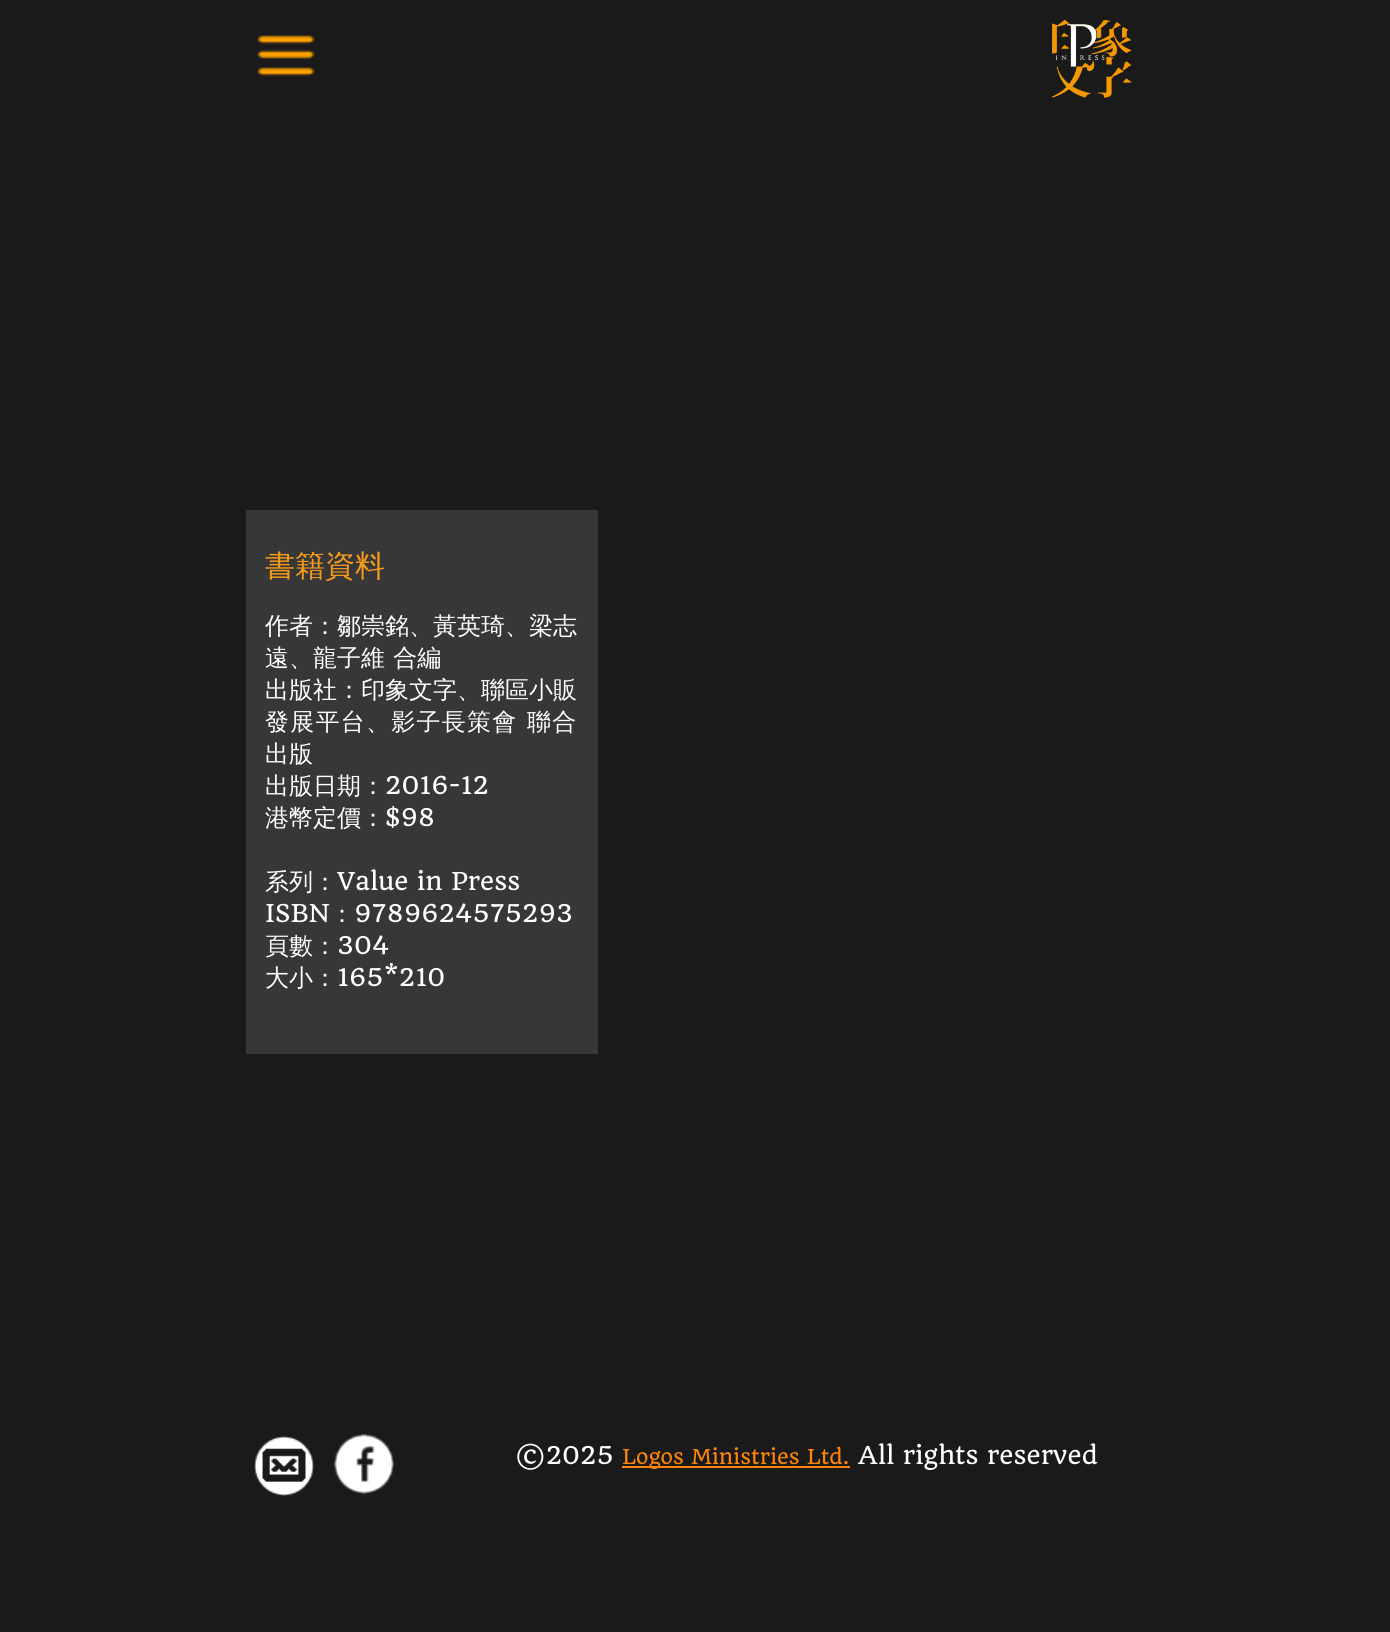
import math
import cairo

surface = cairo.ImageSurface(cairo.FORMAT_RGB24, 1390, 1632)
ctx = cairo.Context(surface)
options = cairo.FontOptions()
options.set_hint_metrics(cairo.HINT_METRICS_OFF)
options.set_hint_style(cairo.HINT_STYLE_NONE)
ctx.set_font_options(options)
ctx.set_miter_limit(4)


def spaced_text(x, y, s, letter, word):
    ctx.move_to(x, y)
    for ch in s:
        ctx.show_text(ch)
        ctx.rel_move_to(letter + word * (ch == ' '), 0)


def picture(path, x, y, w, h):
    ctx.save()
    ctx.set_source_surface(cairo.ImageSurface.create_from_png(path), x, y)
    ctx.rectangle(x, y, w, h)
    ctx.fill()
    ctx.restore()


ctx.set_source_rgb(0.102, 0.102, 0.102)
ctx.paint()
picture("img1.png", 257, 35, 58, 42)
picture("img2.png", 1052, 19, 80, 79)
ctx.set_source_rgb(0.216, 0.216, 0.216)
ctx.rectangle(246, 510, 352, 544)
ctx.fill()
ctx.select_font_face("WenQuanYi Zen Hei Medium")
ctx.set_font_size(30)
ctx.set_source_rgb(0.969, 0.608, 0.106)
ctx.move_to(265, 576)
ctx.show_text("書籍資料")
ctx.set_font_size(24)
ctx.set_source_rgb(1, 1, 1)
ctx.move_to(265, 634)
ctx.show_text("作者：鄒崇銘、黃英琦、梁志")
spaced_text(265, 666, "遠、龍子維 合編", 0, 1)
ctx.move_to(265, 698)
ctx.show_text("出版社：印象文字、聯區小販")
spaced_text(265, 730, "發展平台、影子長策會 聯合", 1.25, 1)
ctx.move_to(265, 762)
ctx.show_text("出版")
ctx.move_to(265, 794)
ctx.show_text("出版日期：")
ctx.select_font_face("Quando")
ctx.move_to(385, 794)
ctx.show_text("2016-12")
ctx.select_font_face("WenQuanYi Zen Hei Medium")
ctx.move_to(265, 826)
ctx.show_text("港幣定價：")
ctx.select_font_face("Quando")
ctx.move_to(385, 826)
ctx.show_text("$98")
ctx.select_font_face("WenQuanYi Zen Hei Medium")
ctx.move_to(265, 890)
ctx.show_text("系列：")
ctx.select_font_face("Quando")
ctx.move_to(337, 890)
ctx.show_text("Value in Press")
ctx.move_to(265, 922)
ctx.show_text("ISBN")
ctx.select_font_face("WenQuanYi Zen Hei Medium")
ctx.move_to(330, 922)
ctx.show_text("：")
ctx.select_font_face("Quando")
ctx.move_to(354, 922)
ctx.show_text("9789624575293")
ctx.select_font_face("WenQuanYi Zen Hei Medium")
ctx.move_to(265, 954)
ctx.show_text("頁數：")
ctx.select_font_face("Quando")
ctx.move_to(337, 954)
ctx.show_text("304")
ctx.select_font_face("WenQuanYi Zen Hei Medium")
ctx.move_to(265, 986)
ctx.show_text("大小：")
ctx.select_font_face("Quando")
ctx.move_to(337, 986)
ctx.show_text("165*210")
picture("img3.png", 254, 1436, 60, 60)
picture("img4.png", 334, 1434, 60, 60)
ctx.move_to(515, 1464)
ctx.show_text("©2025")
ctx.set_source_rgb(0.988, 0.518, 0.047)
ctx.rectangle(622, 1466, 228, 2)
ctx.fill()
ctx.set_font_size(20)
ctx.move_to(622, 1464)
ctx.show_text("Logos Ministries Ltd.")
ctx.set_font_size(24)
ctx.set_source_rgb(1, 1, 1)
ctx.move_to(858, 1464)
ctx.show_text("All rights reserved")
surface.write_to_png("page.png")
